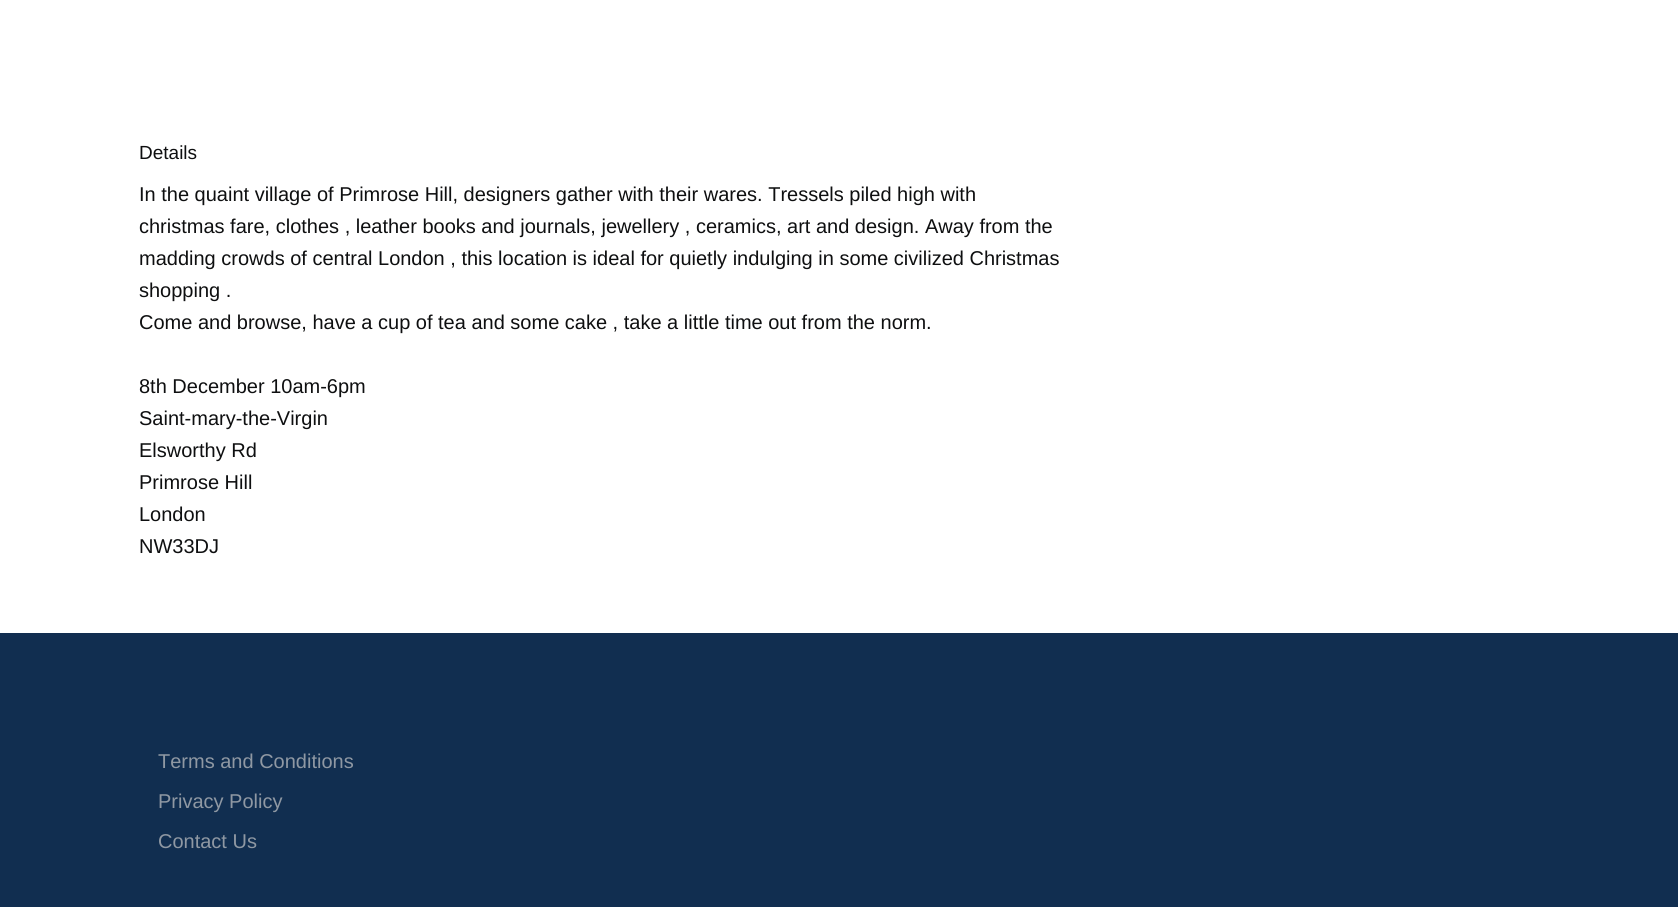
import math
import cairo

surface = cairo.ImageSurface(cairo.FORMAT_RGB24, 1678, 907)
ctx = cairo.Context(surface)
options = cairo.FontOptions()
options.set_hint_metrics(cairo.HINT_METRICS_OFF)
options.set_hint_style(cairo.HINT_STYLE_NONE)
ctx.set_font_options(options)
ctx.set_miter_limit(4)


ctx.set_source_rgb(1, 1, 1)
ctx.paint()
ctx.select_font_face("Liberation Sans")
ctx.set_font_size(19)
ctx.set_source_rgb(0.055, 0.059, 0.063)
ctx.move_to(139, 159)
ctx.show_text("Details")
ctx.set_font_size(20)
ctx.move_to(139, 201)
ctx.show_text("In the quaint village of Primrose Hill, designers gather with their wares. Tressels piled high with")
ctx.move_to(139, 233)
ctx.show_text("christmas fare, clothes , leather books and journals, jewellery , ceramics, art and design. Away from the")
ctx.move_to(139, 265)
ctx.show_text("madding crowds of central London , this location is ideal for quietly indulging in some civilized Christmas")
ctx.move_to(139, 297)
ctx.show_text("shopping .")
ctx.move_to(139, 329)
ctx.show_text("Come and browse, have a cup of tea and some cake , take a little time out from the norm.")
ctx.move_to(139, 393)
ctx.show_text("8th December 10am-6pm")
ctx.move_to(139, 425)
ctx.show_text("Saint-mary-the-Virgin")
ctx.move_to(139, 457)
ctx.show_text("Elsworthy Rd")
ctx.move_to(139, 489)
ctx.show_text("Primrose Hill")
ctx.move_to(139, 521)
ctx.show_text("London")
ctx.move_to(139, 553)
ctx.show_text("NW33DJ")
ctx.set_source_rgb(0.067, 0.18, 0.314)
ctx.rectangle(0, 633, 1678, 274)
ctx.fill()
ctx.set_source_rgb(0.561, 0.596, 0.639)
ctx.move_to(158, 768)
ctx.show_text("Terms and Conditions")
ctx.move_to(158, 808)
ctx.show_text("Privacy Policy")
ctx.move_to(158, 848)
ctx.show_text("Contact Us")
surface.write_to_png("page.png")
